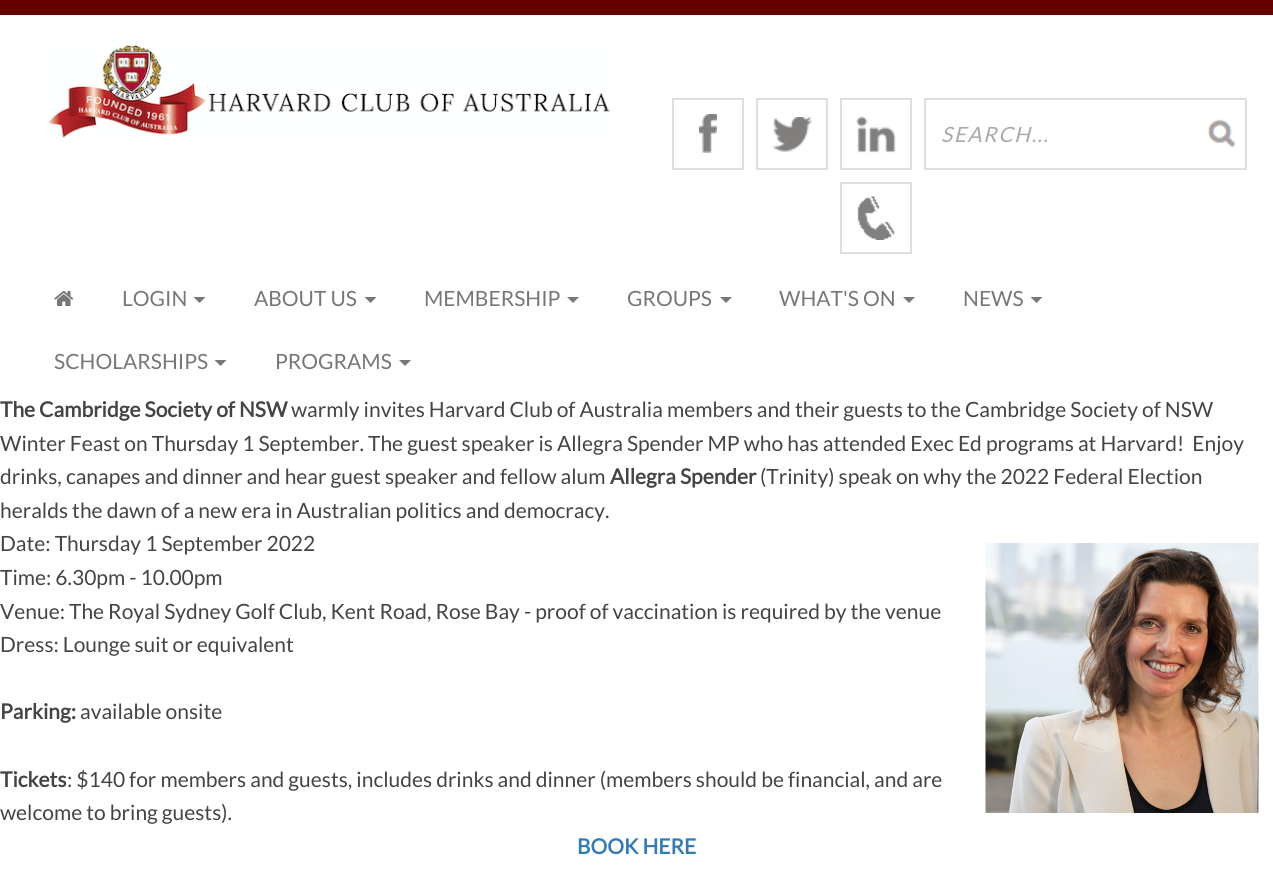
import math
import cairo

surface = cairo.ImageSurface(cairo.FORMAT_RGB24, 1273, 882)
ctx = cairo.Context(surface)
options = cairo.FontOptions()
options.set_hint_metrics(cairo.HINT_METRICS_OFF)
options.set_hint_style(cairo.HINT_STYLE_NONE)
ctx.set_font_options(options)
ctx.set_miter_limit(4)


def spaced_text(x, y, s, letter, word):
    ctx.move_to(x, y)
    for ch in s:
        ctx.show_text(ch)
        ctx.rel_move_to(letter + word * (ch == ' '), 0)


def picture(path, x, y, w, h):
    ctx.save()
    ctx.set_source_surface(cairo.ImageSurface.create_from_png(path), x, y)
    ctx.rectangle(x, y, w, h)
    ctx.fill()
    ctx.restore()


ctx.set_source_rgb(0.4, 0, 0)
ctx.paint()
ctx.set_source_rgb(1, 1, 1)
ctx.rectangle(0, 15, 1273, 867)
ctx.fill()
picture("img1.png", 48, 45, 562, 93)
picture("img2.png", 699, 114, 18, 39)
ctx.rectangle(673, 99, 70, 70)
ctx.set_source_rgb(0.871, 0.871, 0.871)
ctx.stroke()
picture("img3.png", 772, 117, 40, 35)
ctx.rectangle(757, 99, 70, 70)
ctx.stroke()
picture("img4.png", 856, 116, 40, 37)
ctx.rectangle(841, 99, 70, 70)
ctx.stroke()
picture("img5.png", 857, 196, 38, 44)
ctx.rectangle(841, 183, 70, 70)
ctx.stroke()
ctx.rectangle(925, 99, 321, 70)
ctx.stroke()
ctx.select_font_face("Lato", cairo.FONT_SLANT_ITALIC)
ctx.set_font_size(21)
ctx.set_source_rgb(0.667, 0.667, 0.667)
spaced_text(941, 142, "SEARCH...", 1.5, 0)
picture("img6.png", 1207, 119, 29, 29)
picture("img7.png", 54, 291, 20, 15)
ctx.select_font_face("Lato")
ctx.set_source_rgb(0.467, 0.467, 0.467)
ctx.move_to(122, 306)
ctx.show_text("LOGIN")
ctx.new_path()
ctx.move_to(193.5, 297)
ctx.line_to(205.5, 297)
ctx.line_to(199.5, 303)
ctx.close_path()
ctx.fill()
ctx.move_to(254, 306)
ctx.show_text("ABOUT US")
ctx.new_path()
ctx.move_to(364.5, 297)
ctx.line_to(376.5, 297)
ctx.line_to(370.5, 303)
ctx.close_path()
ctx.fill()
ctx.move_to(424, 306)
ctx.show_text("MEMBERSHIP")
ctx.new_path()
ctx.move_to(567, 297)
ctx.line_to(579, 297)
ctx.line_to(573, 303)
ctx.close_path()
ctx.fill()
ctx.move_to(627, 306)
ctx.show_text("GROUPS")
ctx.new_path()
ctx.move_to(720, 297)
ctx.line_to(732, 297)
ctx.line_to(726, 303)
ctx.close_path()
ctx.fill()
ctx.move_to(779, 306)
ctx.show_text("WHAT'S ON")
ctx.new_path()
ctx.move_to(903, 297)
ctx.line_to(915, 297)
ctx.line_to(909, 303)
ctx.close_path()
ctx.fill()
ctx.move_to(963, 306)
ctx.show_text("NEWS")
ctx.new_path()
ctx.move_to(1030.5, 297)
ctx.line_to(1042.5, 297)
ctx.line_to(1036.5, 303)
ctx.close_path()
ctx.fill()
ctx.move_to(54, 369)
ctx.show_text("SCHOLARSHIPS")
ctx.new_path()
ctx.move_to(214.5, 360)
ctx.line_to(226.5, 360)
ctx.line_to(220.5, 366)
ctx.close_path()
ctx.fill()
ctx.move_to(275, 369)
ctx.show_text("PROGRAMS")
ctx.new_path()
ctx.move_to(399, 360)
ctx.line_to(411, 360)
ctx.line_to(405, 366)
ctx.close_path()
ctx.fill()
ctx.select_font_face("Lato", cairo.FONT_SLANT_NORMAL, cairo.FONT_WEIGHT_BOLD)
ctx.set_source_rgb(0.267, 0.267, 0.267)
ctx.move_to(0, 417)
ctx.show_text("The Cambridge Society of NSW")
ctx.select_font_face("Lato")
ctx.move_to(291, 417)
ctx.show_text("warmly invites Harvard Club of Australia members and their guests to the Cambridge Society of NSW")
ctx.move_to(0, 451)
ctx.show_text("Winter Feast on Thursday 1 September. The guest speaker is Allegra Spender MP who has attended Exec Ed programs at Harvard!  Enjoy")
ctx.move_to(0, 484)
ctx.show_text("drinks, canapes and dinner and hear guest speaker and fellow alum")
ctx.select_font_face("Lato", cairo.FONT_SLANT_NORMAL, cairo.FONT_WEIGHT_BOLD)
ctx.move_to(610, 484)
ctx.show_text("Allegra Spender")
ctx.select_font_face("Lato")
ctx.move_to(760, 484)
ctx.show_text("(Trinity) speak on why the 2022 Federal Election")
ctx.move_to(0, 518)
ctx.show_text("heralds the dawn of a new era in Australian politics and democracy.")
ctx.move_to(0, 551)
ctx.show_text("Date: Thursday 1 September 2022")
ctx.move_to(0, 585)
ctx.show_text("Time: 6.30pm - 10.00pm")
ctx.move_to(0, 619)
ctx.show_text("Venue: The Royal Sydney Golf Club, Kent Road, Rose Bay - proof of vaccination is required by the venue")
ctx.move_to(0, 652)
ctx.show_text("Dress: Lounge suit or equivalent")
picture("img8.png", 985, 543, 274, 270)
ctx.select_font_face("Lato", cairo.FONT_SLANT_NORMAL, cairo.FONT_WEIGHT_BOLD)
ctx.move_to(0, 719)
ctx.show_text("Parking:")
ctx.select_font_face("Lato")
ctx.move_to(80, 719)
ctx.show_text("available onsite")
ctx.select_font_face("Lato", cairo.FONT_SLANT_NORMAL, cairo.FONT_WEIGHT_BOLD)
ctx.move_to(0, 787)
ctx.show_text("Tickets")
ctx.select_font_face("Lato")
ctx.move_to(67, 787)
ctx.show_text(": $140 for members and guests, includes drinks and dinner (members should be financial, and are")
ctx.move_to(0, 820)
ctx.show_text("welcome to bring guests).")
ctx.select_font_face("Lato", cairo.FONT_SLANT_NORMAL, cairo.FONT_WEIGHT_BOLD)
ctx.set_source_rgb(0.2, 0.478, 0.718)
ctx.move_to(577, 854)
ctx.show_text("BOOK HERE")
surface.write_to_png("page.png")
